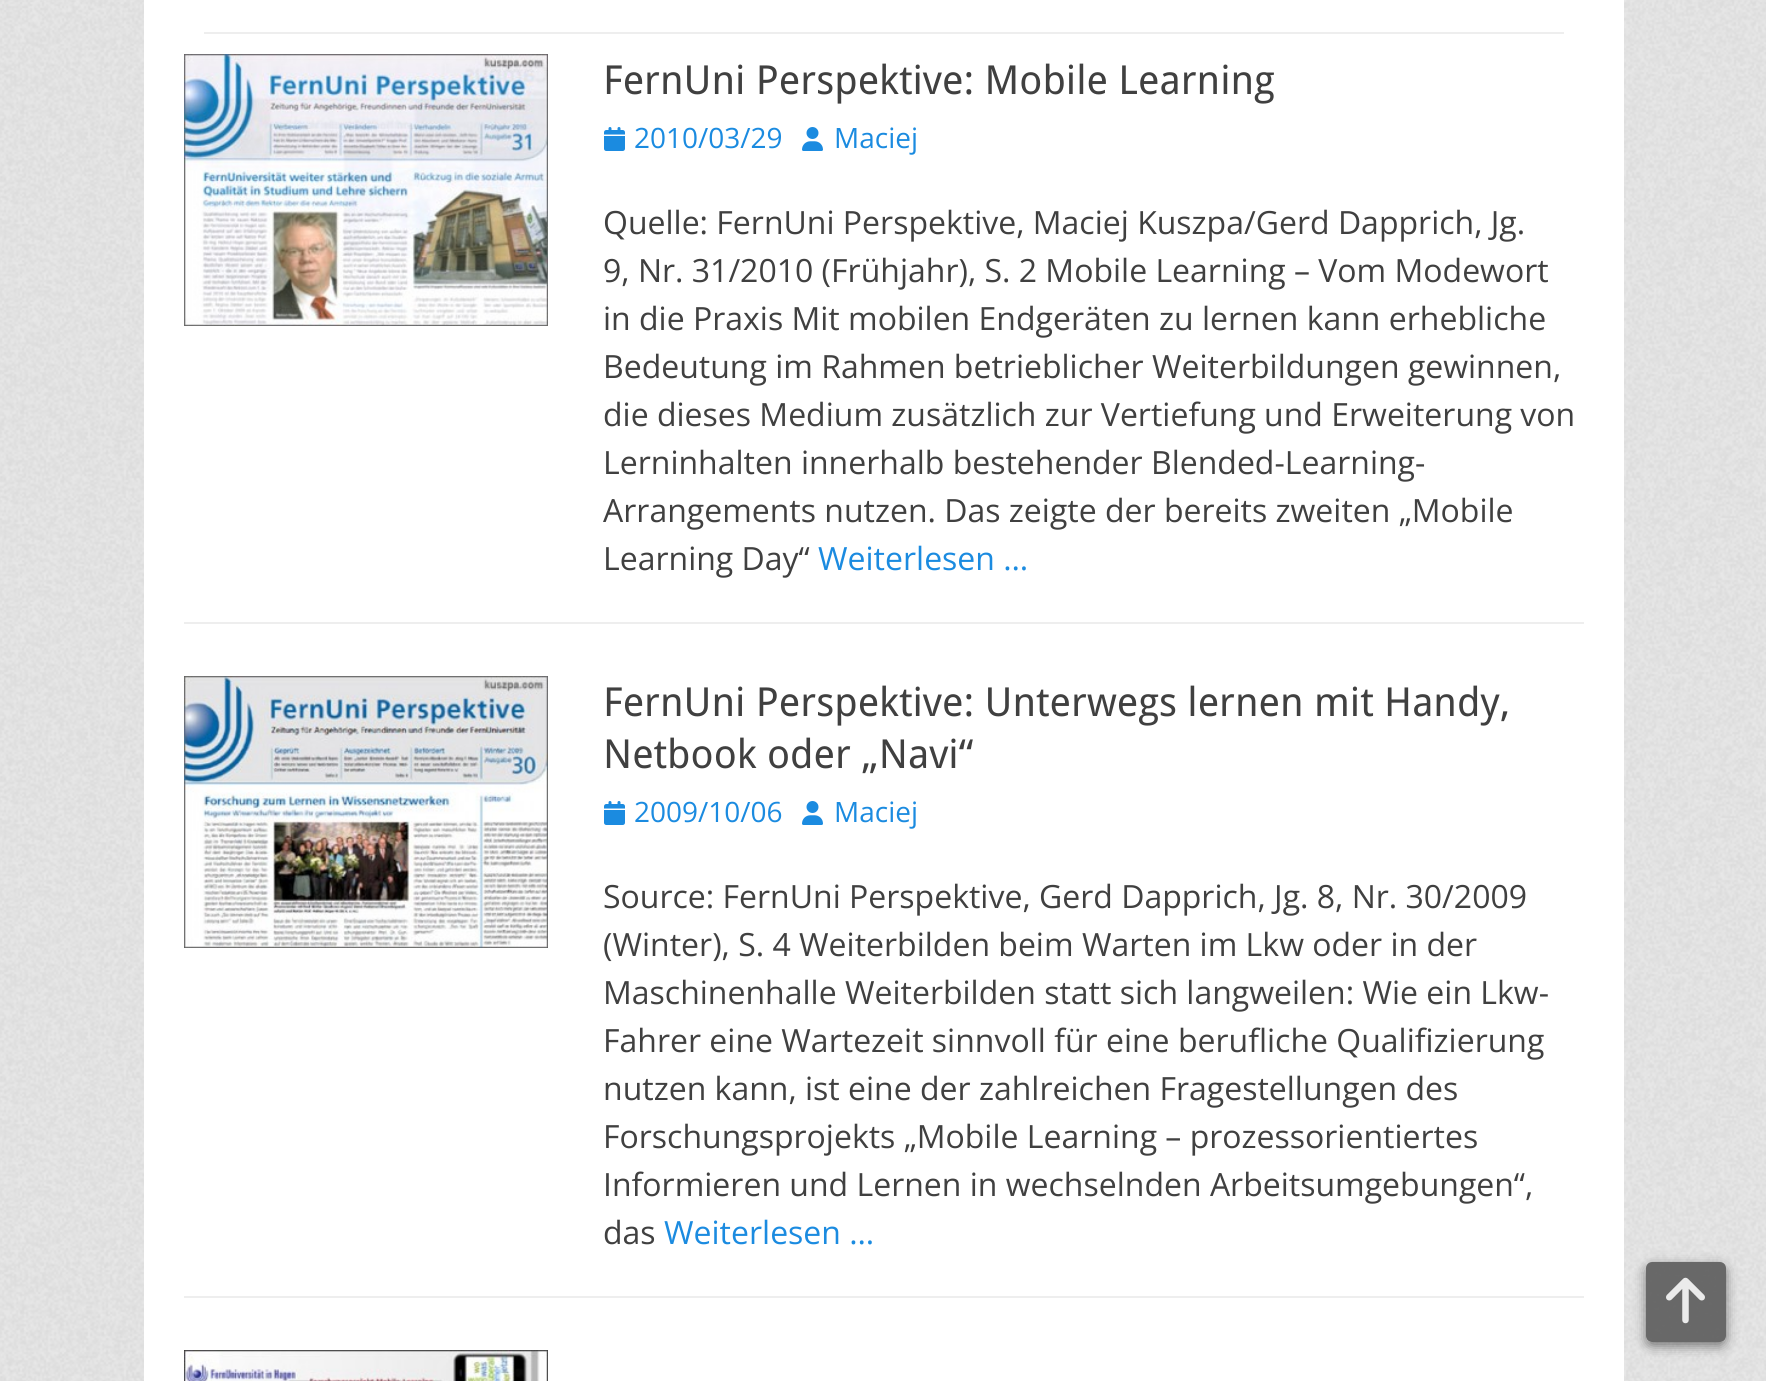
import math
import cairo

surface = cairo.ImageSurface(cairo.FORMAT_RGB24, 1766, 1381)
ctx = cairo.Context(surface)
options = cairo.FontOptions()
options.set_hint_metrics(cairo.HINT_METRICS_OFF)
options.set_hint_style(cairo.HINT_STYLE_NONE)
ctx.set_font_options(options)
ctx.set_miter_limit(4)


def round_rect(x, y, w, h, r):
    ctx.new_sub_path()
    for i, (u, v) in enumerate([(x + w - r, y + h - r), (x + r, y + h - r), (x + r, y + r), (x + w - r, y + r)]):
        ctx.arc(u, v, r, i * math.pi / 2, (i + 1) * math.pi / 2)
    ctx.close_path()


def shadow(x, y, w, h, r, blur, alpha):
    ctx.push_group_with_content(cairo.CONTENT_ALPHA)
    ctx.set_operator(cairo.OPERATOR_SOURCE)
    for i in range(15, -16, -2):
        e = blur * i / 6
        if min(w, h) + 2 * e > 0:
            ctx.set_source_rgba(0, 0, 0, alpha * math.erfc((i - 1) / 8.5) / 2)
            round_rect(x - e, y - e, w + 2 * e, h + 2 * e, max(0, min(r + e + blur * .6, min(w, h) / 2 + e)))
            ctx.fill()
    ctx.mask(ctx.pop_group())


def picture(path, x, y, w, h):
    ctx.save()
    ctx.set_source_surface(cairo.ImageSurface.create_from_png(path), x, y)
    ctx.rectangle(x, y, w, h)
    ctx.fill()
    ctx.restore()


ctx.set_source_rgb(1, 1, 1)
ctx.paint()
picture("img1.png", 0, 0, 1766, 1381)
ctx.set_source_rgb(1, 1, 1)
ctx.rectangle(144, 0, 1480, 1381)
ctx.fill()
ctx.set_source_rgb(0.933, 0.933, 0.933)
ctx.rectangle(204, 32, 1360, 2)
ctx.fill()
ctx.rectangle(184, 622, 1400, 2)
ctx.fill()
picture("img2.png", 184, 54, 364, 272)
ctx.select_font_face("Droid Sans")
ctx.set_font_size(40)
ctx.set_source_rgb(0.251, 0.251, 0.251)
ctx.move_to(603, 94)
ctx.show_text("FernUni Perspektive: Mobile Learning")
picture("img3.png", 604, 127, 21, 24)
ctx.select_font_face("Open Sans")
ctx.set_font_size(28)
ctx.set_source_rgb(0.106, 0.545, 0.878)
ctx.move_to(634, 148)
ctx.show_text("2010/03/29")
picture("img4.png", 802, 127, 21, 24)
ctx.move_to(834, 148)
ctx.show_text("Maciej")
ctx.set_font_size(32)
ctx.set_source_rgb(0.251, 0.251, 0.251)
ctx.move_to(603, 234)
ctx.show_text("Quelle: FernUni Perspektive, Maciej Kuszpa/Gerd Dapprich, Jg.")
ctx.move_to(603, 282)
ctx.show_text("9, Nr. 31/2010 (Frühjahr), S. 2 Mobile Learning – Vom Modewort")
ctx.move_to(603, 330)
ctx.show_text("in die Praxis Mit mobilen Endgeräten zu lernen kann erhebliche")
ctx.move_to(603, 378)
ctx.show_text("Bedeutung im Rahmen betrieblicher Weiterbildungen gewinnen,")
ctx.move_to(603, 426)
ctx.show_text("die dieses Medium zusätzlich zur Vertiefung und Erweiterung von")
ctx.move_to(603, 474)
ctx.show_text("Lerninhalten innerhalb bestehender Blended-Learning-")
ctx.move_to(603, 522)
ctx.show_text("Arrangements nutzen. Das zeigte der bereits zweiten „Mobile")
ctx.move_to(603, 570)
ctx.show_text("Learning Day“")
ctx.set_source_rgb(0.106, 0.545, 0.878)
ctx.move_to(818, 570)
ctx.show_text("Weiterlesen …")
ctx.set_source_rgb(0.933, 0.933, 0.933)
ctx.rectangle(184, 1296, 1400, 2)
ctx.fill()
picture("img5.png", 184, 676, 364, 272)
ctx.select_font_face("Droid Sans")
ctx.set_font_size(40)
ctx.set_source_rgb(0.251, 0.251, 0.251)
ctx.move_to(603, 716)
ctx.show_text("FernUni Perspektive: Unterwegs lernen mit Handy,")
ctx.move_to(603, 768)
ctx.show_text("Netbook oder „Navi“")
picture("img3.png", 604, 801, 21, 24)
ctx.select_font_face("Open Sans")
ctx.set_font_size(28)
ctx.set_source_rgb(0.106, 0.545, 0.878)
ctx.move_to(634, 822)
ctx.show_text("2009/10/06")
picture("img4.png", 802, 801, 21, 24)
ctx.move_to(834, 822)
ctx.show_text("Maciej")
ctx.set_font_size(32)
ctx.set_source_rgb(0.251, 0.251, 0.251)
ctx.move_to(603, 908)
ctx.show_text("Source: FernUni Perspektive, Gerd Dapprich, Jg. 8, Nr. 30/2009")
ctx.move_to(603, 956)
ctx.show_text("(Winter), S. 4 Weiterbilden beim Warten im Lkw oder in der")
ctx.move_to(603, 1004)
ctx.show_text("Maschinenhalle Weiterbilden statt sich langweilen: Wie ein Lkw-")
ctx.move_to(603, 1052)
ctx.show_text("Fahrer eine Wartezeit sinnvoll für eine berufliche Qualifizierung")
ctx.move_to(603, 1100)
ctx.show_text("nutzen kann, ist eine der zahlreichen Fragestellungen des")
ctx.move_to(603, 1148)
ctx.show_text("Forschungsprojekts „Mobile Learning – prozessorientiertes")
ctx.move_to(603, 1196)
ctx.show_text("Informieren und Lernen in wechselnden Arbeitsumgebungen“,")
ctx.move_to(603, 1244)
ctx.show_text("das")
ctx.set_source_rgb(0.106, 0.545, 0.878)
ctx.move_to(664, 1244)
ctx.show_text("Weiterlesen …")
picture("img6.png", 184, 1350, 364, 31)
ctx.save()
ctx.set_fill_rule(cairo.FILL_RULE_EVEN_ODD)
ctx.new_path()
ctx.move_to(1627, 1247)
ctx.line_to(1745, 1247)
ctx.line_to(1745, 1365)
ctx.line_to(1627, 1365)
ctx.close_path()
ctx.move_to(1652, 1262)
ctx.line_to(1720, 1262)
ctx.curve_to(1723.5, 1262, 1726, 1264.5, 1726, 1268)
ctx.line_to(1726, 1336)
ctx.curve_to(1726, 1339.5, 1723.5, 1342, 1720, 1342)
ctx.line_to(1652, 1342)
ctx.curve_to(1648.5, 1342, 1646, 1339.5, 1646, 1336)
ctx.line_to(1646, 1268)
ctx.curve_to(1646, 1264.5, 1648.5, 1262, 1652, 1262)
ctx.close_path()
ctx.clip()
ctx.set_source_rgb(0, 0, 0)
shadow(1646, 1266, 80, 80, 6, 6, 0.49)
ctx.restore()
ctx.set_source_rgba(0.4, 0.4, 0.4, 0.98)
round_rect(1646, 1262, 80, 80, 6)
ctx.fill()
picture("img7.png", 1666, 1277, 39, 47)
surface.write_to_png("page.png")
